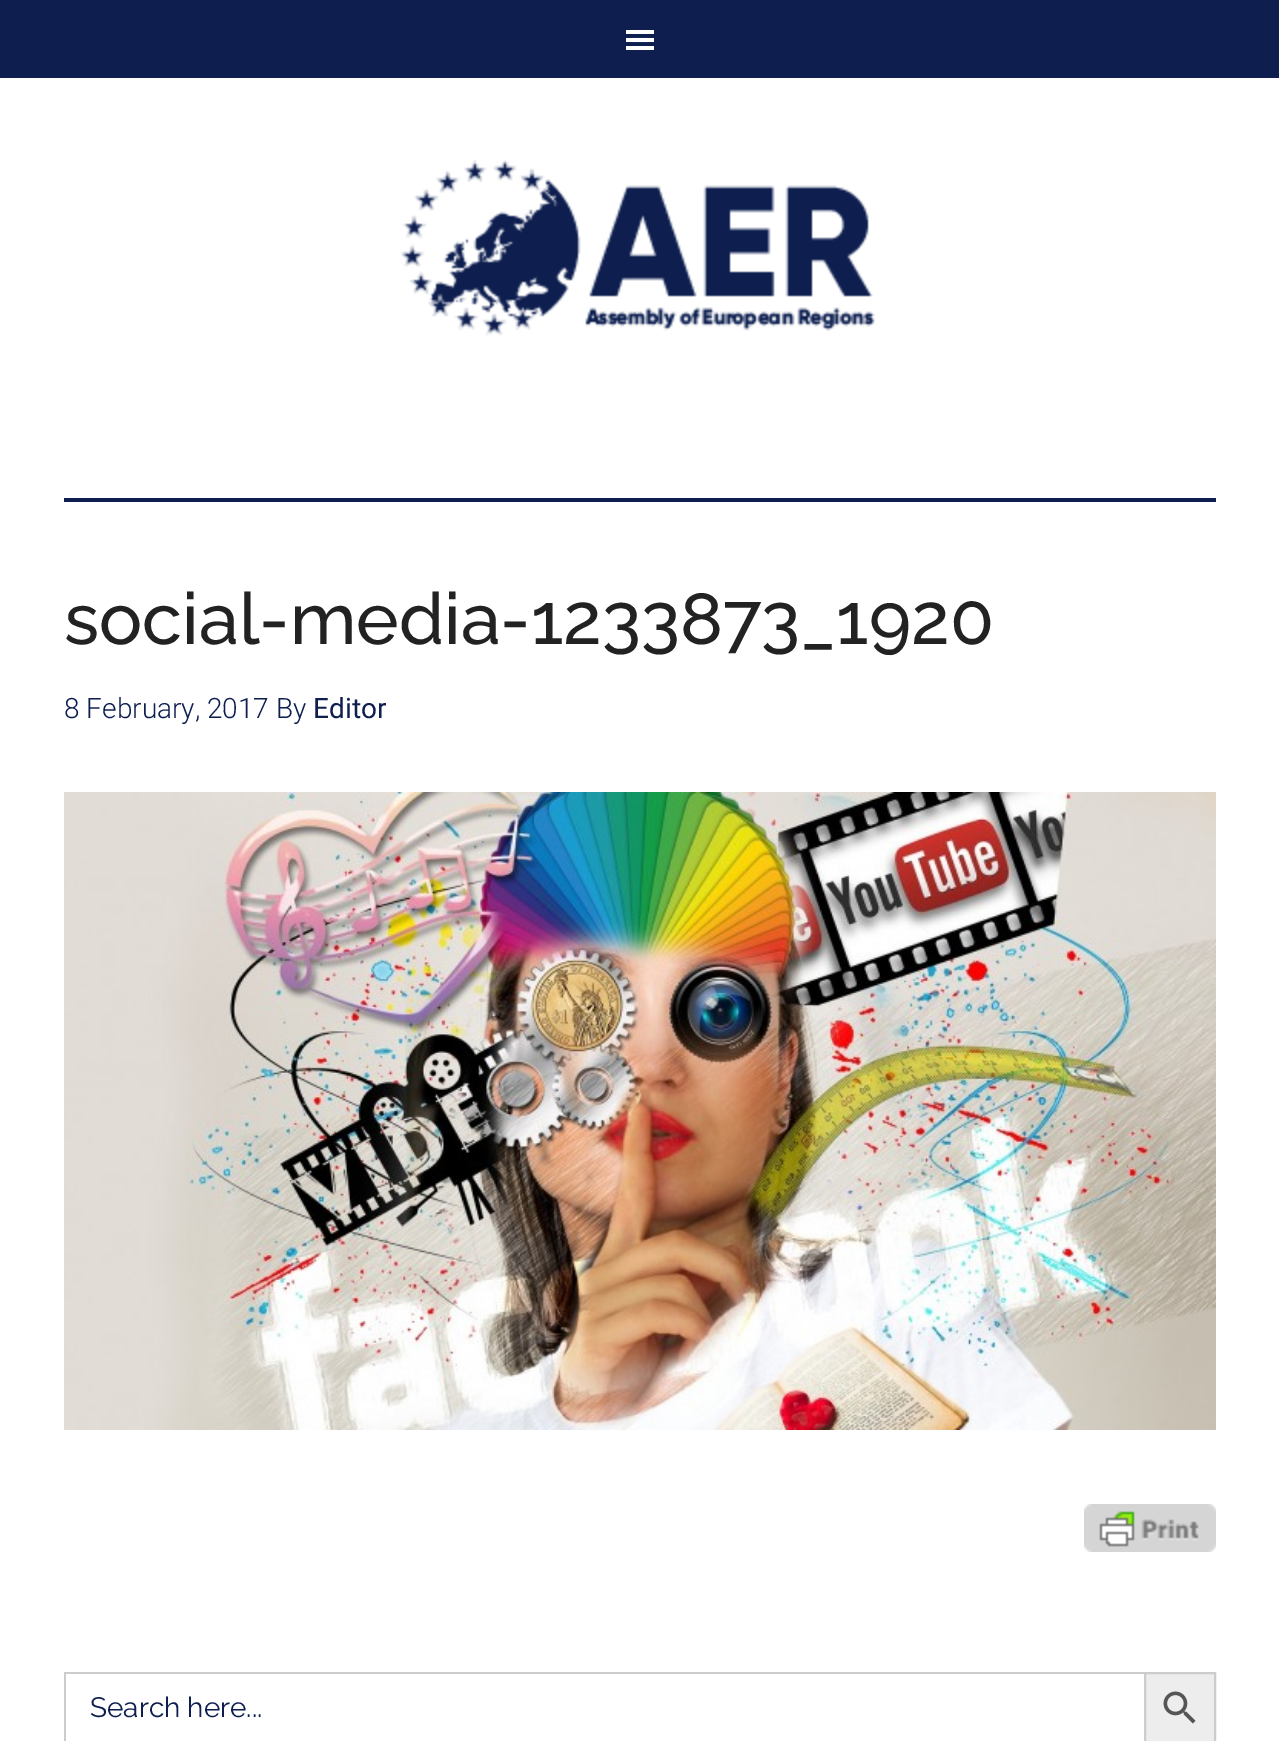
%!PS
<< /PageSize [1279 1741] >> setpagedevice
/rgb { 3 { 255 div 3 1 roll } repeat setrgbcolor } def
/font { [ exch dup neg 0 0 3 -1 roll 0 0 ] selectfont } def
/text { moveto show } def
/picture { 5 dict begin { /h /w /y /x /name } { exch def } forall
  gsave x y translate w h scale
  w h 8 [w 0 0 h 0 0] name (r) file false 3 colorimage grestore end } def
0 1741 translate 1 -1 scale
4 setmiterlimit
255 255 255 rgb
0 0 1279 1741 rectfill
13 30 79 rgb
0 0 1279 78 rectfill
(img_01.rgb) 626 30 28 20 picture
64 498 1152 4 rectfill
(img_02.rgb) 400 159 475 177 picture
(img_03.rgb) 64 792 1152 638 picture
(img_04.rgb) 1084 1504 132 48 picture
204 204 204 rgb
64 1672 1080 2 rectfill
64 1672 2 69 rectfill
237 237 237 rgb
1145 1673 moveto 70 0 rlineto 0 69 rlineto -70 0 rlineto closepath gsave fill grestore
204 204 204 rgb
2 setlinewidth
stroke
(img_05.rgb) 1163 1691 33 33 picture
/Raleway-Medium 72 font
34 34 34 rgb
(social-media-1233873_1920) 64 644 text
/Roboto-Light 28 font
13 30 79 rgb
(8 February, 2017 By) 64 718 text
/Roboto-Regular 28 font
(Editor) 313 718 text
/Raleway-Regular 28 font
(Search here...) 90 1717 text
showpage
